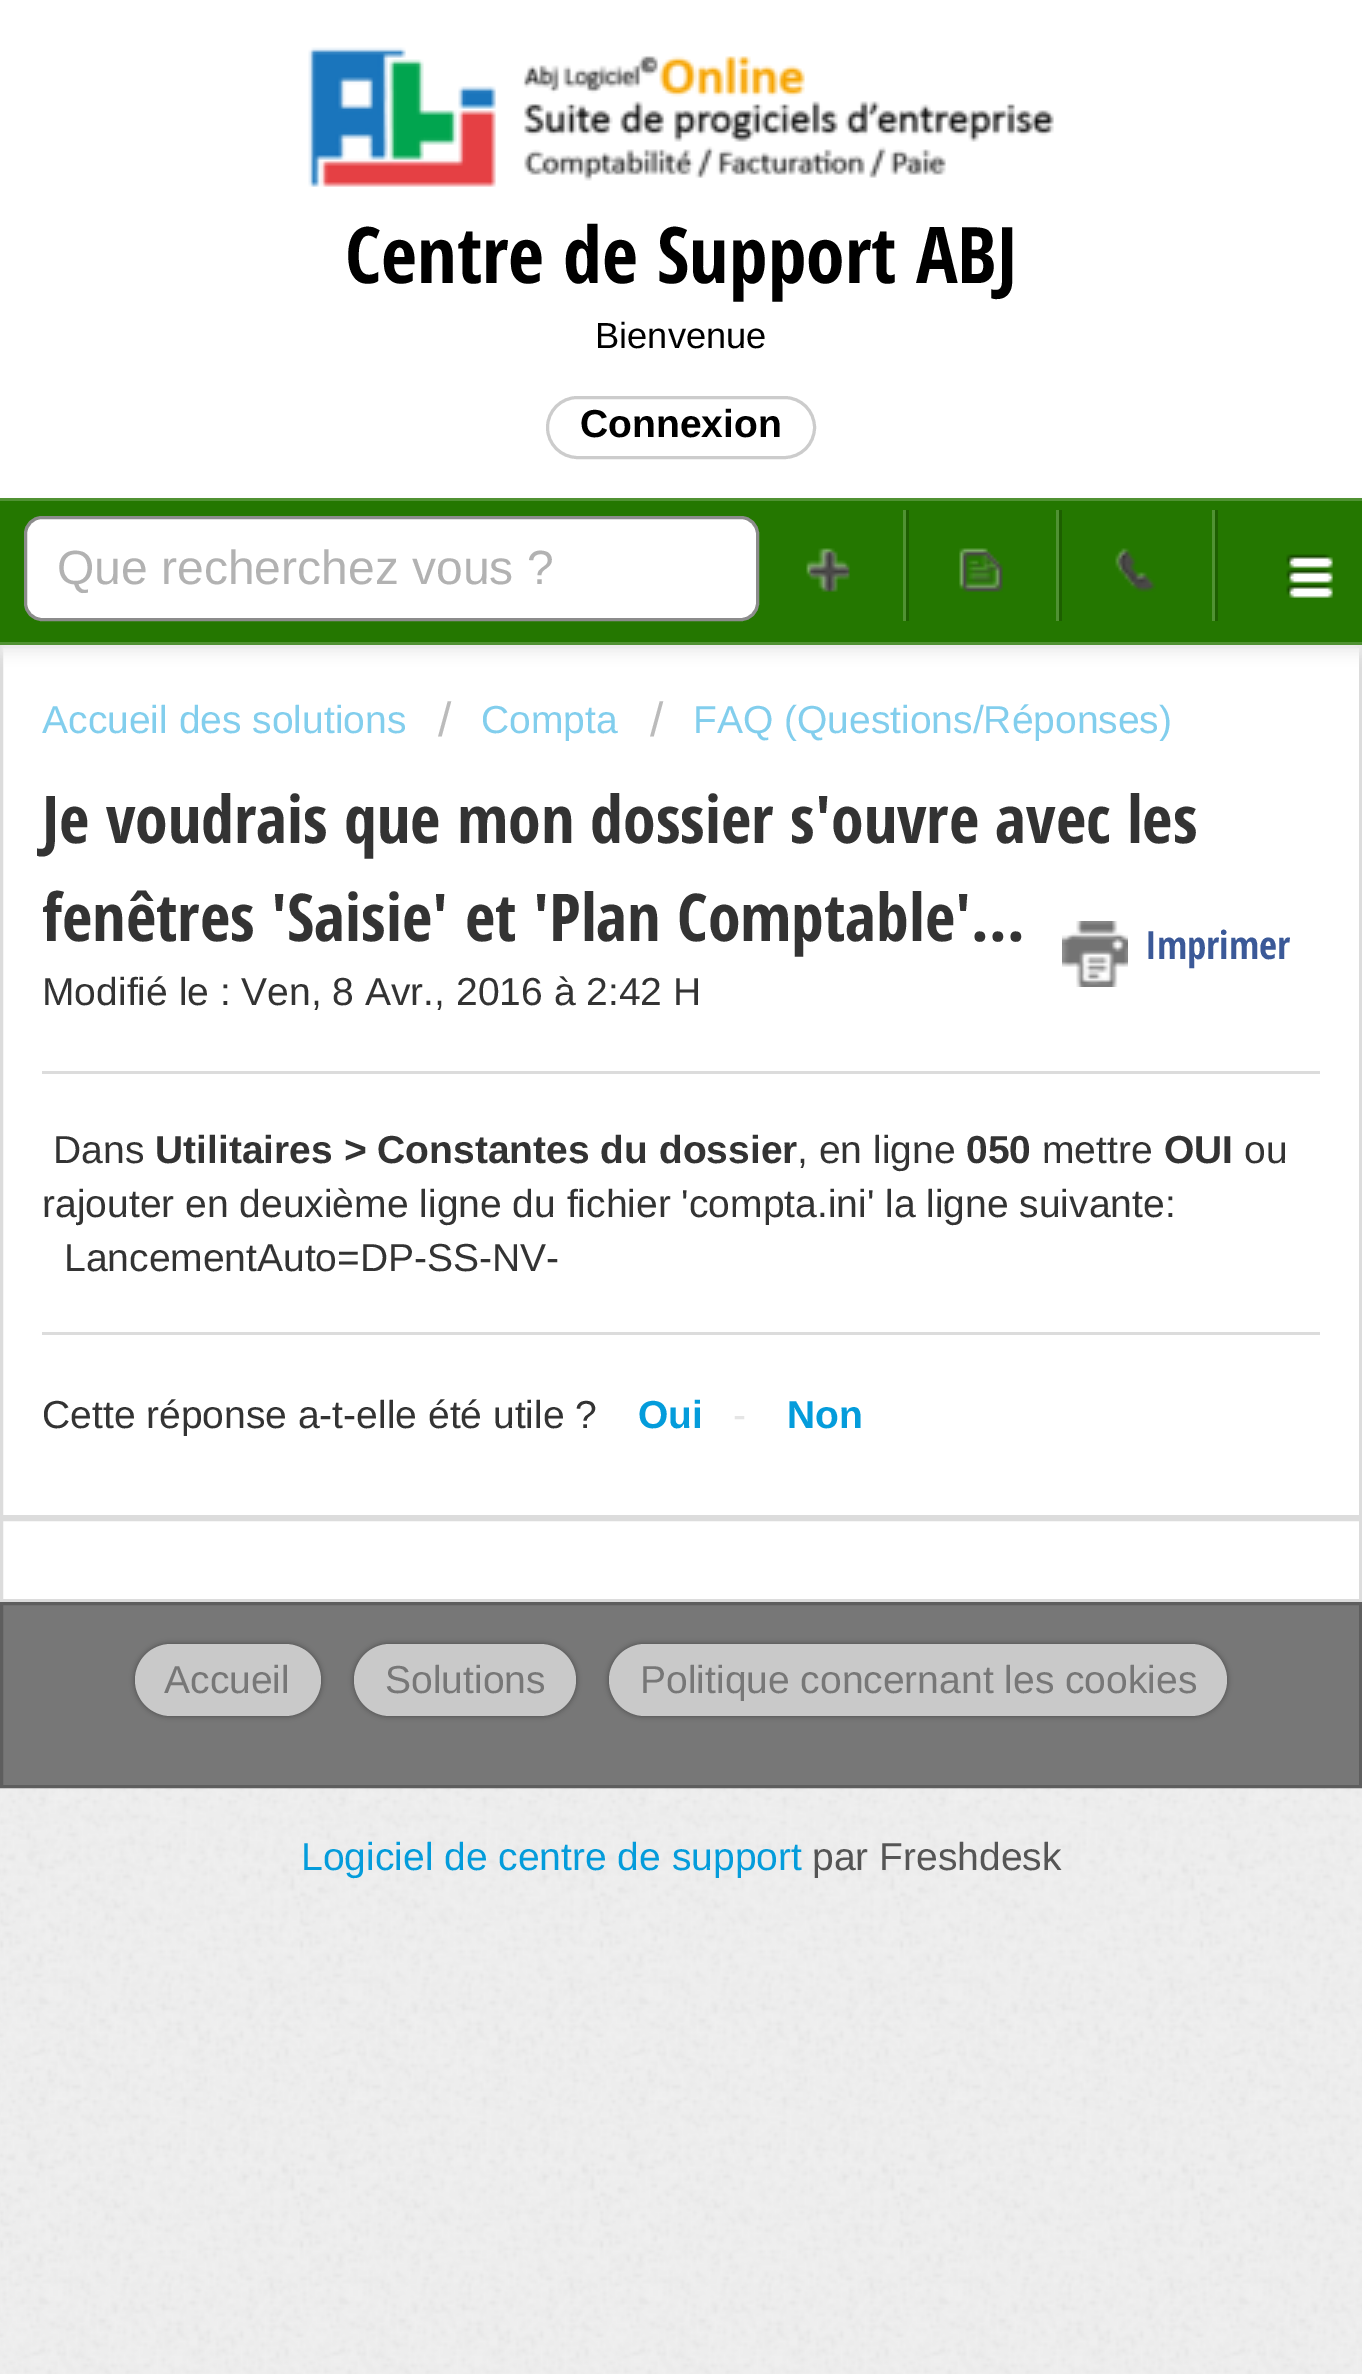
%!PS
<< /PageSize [1362 2374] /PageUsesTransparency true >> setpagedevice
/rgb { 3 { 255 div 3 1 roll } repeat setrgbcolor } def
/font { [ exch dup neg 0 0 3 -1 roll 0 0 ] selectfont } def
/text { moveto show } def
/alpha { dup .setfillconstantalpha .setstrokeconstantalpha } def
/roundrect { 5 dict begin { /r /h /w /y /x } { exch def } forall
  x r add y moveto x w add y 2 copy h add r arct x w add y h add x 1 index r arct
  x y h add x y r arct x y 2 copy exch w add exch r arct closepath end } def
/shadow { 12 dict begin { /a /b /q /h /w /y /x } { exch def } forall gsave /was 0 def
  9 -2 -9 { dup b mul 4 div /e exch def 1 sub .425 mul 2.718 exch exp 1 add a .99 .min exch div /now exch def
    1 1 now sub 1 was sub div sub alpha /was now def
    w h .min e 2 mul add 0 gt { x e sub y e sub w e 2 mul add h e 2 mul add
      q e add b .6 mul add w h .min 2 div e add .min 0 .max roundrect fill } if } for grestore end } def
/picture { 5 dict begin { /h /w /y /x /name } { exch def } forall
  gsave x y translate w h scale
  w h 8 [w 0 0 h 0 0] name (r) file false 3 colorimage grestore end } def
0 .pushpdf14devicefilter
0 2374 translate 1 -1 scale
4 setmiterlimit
239 239 239 rgb
0 0 1362 2374 rectfill
(img_01.rgb) 0 1788 1362 586 picture
255 255 255 rgb
0 0 1362 498 rectfill
(img_02.rgb) 308 47 746 140 picture
204 204 204 rgb
3 setlinewidth
547.5 397.5 267 60 30 roundrect stroke
255 255 255 rgb
1.5 646.5 moveto 1359 0 rlineto 0 870 rlineto -1359 0 rlineto closepath gsave fill grestore
220 220 220 rgb
stroke
238 238 238 rgb
0 507 1362 147 0 6 1 shadow
36 119 0 rgb
0 501 1362 141 rectfill
80 146 51 rgb
0 498 1362 3 rectfill
0 642 1362 3 rectfill
(img_03.rgb) 1286 554 47 44 picture
255 255 255 rgb
25.5 517.5 732 102 16.5 roundrect gsave fill grestore
140 140 140 rgb
stroke
29 95 0 rgb
906 510 3 111 rectfill
80 146 51 rgb
903 510 3 111 rectfill
(img_04.rgb) 806 548 44 44 picture
29 95 0 rgb
1059 510 3 111 rectfill
80 146 51 rgb
1056 510 3 111 rectfill
(img_05.rgb) 959 548 44 44 picture
29 95 0 rgb
1215 510 3 111 rectfill
80 146 51 rgb
1212 510 3 111 rectfill
(img_06.rgb) 1115 548 41 44 picture
(img_07.rgb) 1062 921 66 66 picture
220 220 220 rgb
42 1071 1278 3 rectfill
42 1332 1278 3 rectfill
255 255 255 rgb
1.5 1519.5 moveto 1359 0 rlineto 0 81 rlineto -1359 0 rlineto closepath gsave fill grestore
220 220 220 rgb
stroke
119 119 119 rgb
1.5 1603.5 moveto 1359 0 rlineto 0 183 rlineto -1359 0 rlineto closepath gsave fill grestore
94 94 94 rgb
stroke
73 73 73 rgb
135 1644 186 72 36 3 1 shadow
201 201 201 rgb
135 1644 186 72 36 roundrect fill
73 73 73 rgb
354 1644 222 72 36 3 1 shadow
201 201 201 rgb
354 1644 222 72 36 roundrect fill
73 73 73 rgb
609 1644 618 72 36 3 1 shadow
201 201 201 rgb
609 1644 618 72 36 roundrect fill
/OpenSansCondensed-Bold 78 font
0 0 0 rgb
(Centre de Support ABJ) 345 283 text
/LiberationSans-Regular 36.25 font
(Bienvenue) 595 348 text
/LiberationSans-Bold 39 font
(Connexion) 580 437 text
/LiberationSans-Regular 48 font
178 178 178 rgb
(Que recherchez vous ?) 57 584 text
/LiberationSans-Regular 39 font
130 206 237 rgb
(Accueil des solutions) 42 733 text
/LiberationSans-Regular 48 font
187 187 187 rgb
(/) 438 736 text
/LiberationSans-Regular 39 font
130 206 237 rgb
(Compta) 481 733 text
/LiberationSans-Regular 48 font
187 187 187 rgb
(/) 650 736 text
/LiberationSans-Regular 39 font
130 206 237 rgb
(FAQ \(Questions/Réponses\)) 693 733 text
/OpenSansCondensed-Bold 66 font
51 51 51 rgb
(Je voudrais que mon dossier s'ouvre avec les) 42 843 text
(fenêtres 'Saisie' et 'Plan Comptable'...) 42 941 text
/OpenSansCondensed-Bold 39 font
59 89 152 rgb
(Imprimer) 1145 959 text
/LiberationSans-Regular 39 font
51 51 51 rgb
(Modifié le : Ven, 8 Avr., 2016 à 2:42 H) 42 1005 text
(Dans) 53 1163 text
/LiberationSans-Bold 39 font
(Utilitaires > Constantes du dossier) 155 1163 text
/LiberationSans-Regular 39 font
(, en ligne) 797 1163 text
/LiberationSans-Bold 39 font
(050) 966 1163 text
/LiberationSans-Regular 39 font
(mettre) 1042 1163 text
/LiberationSans-Bold 39 font
(OUI) 1164 1163 text
/LiberationSans-Regular 39 font
(ou) 1244 1163 text
(rajouter en deuxième ligne du fichier 'compta.ini' la ligne suivante:) 42 1217 text
(LancementAuto=DP-SS-NV-) 64 1271 text
(Cette réponse a-t-elle été utile ?) 42 1428 text
/LiberationSans-Bold 39 font
4 156 219 rgb
(Oui) 638 1428 text
/LiberationSans-Regular 39 font
229 229 229 rgb
(-) 733 1428 text
/LiberationSans-Bold 39 font
4 156 219 rgb
(Non) 787 1428 text
/LiberationSans-Regular 39 font
119 119 119 rgb
(Accueil) 164 1693 text
(Solutions) 385 1693 text
(Politique concernant les cookies) 640 1693 text
4 156 219 rgb
(Logiciel de centre de support) 301 1870 text
85 85 85 rgb
(par Freshdesk) 812 1870 text
.poppdf14devicefilter showpage
